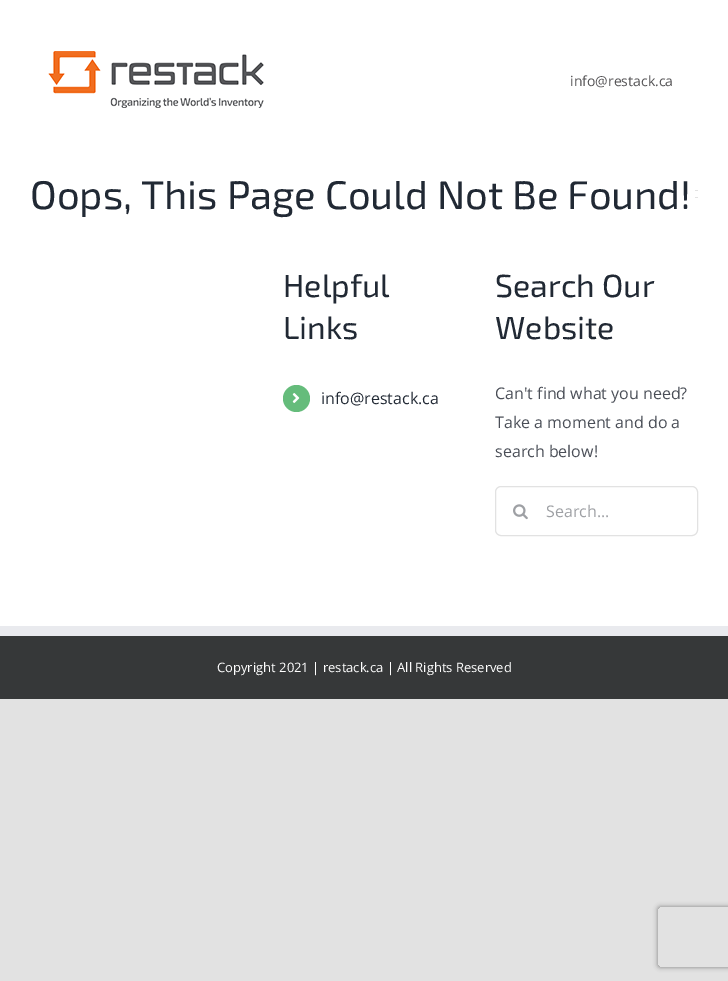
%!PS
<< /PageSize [728 981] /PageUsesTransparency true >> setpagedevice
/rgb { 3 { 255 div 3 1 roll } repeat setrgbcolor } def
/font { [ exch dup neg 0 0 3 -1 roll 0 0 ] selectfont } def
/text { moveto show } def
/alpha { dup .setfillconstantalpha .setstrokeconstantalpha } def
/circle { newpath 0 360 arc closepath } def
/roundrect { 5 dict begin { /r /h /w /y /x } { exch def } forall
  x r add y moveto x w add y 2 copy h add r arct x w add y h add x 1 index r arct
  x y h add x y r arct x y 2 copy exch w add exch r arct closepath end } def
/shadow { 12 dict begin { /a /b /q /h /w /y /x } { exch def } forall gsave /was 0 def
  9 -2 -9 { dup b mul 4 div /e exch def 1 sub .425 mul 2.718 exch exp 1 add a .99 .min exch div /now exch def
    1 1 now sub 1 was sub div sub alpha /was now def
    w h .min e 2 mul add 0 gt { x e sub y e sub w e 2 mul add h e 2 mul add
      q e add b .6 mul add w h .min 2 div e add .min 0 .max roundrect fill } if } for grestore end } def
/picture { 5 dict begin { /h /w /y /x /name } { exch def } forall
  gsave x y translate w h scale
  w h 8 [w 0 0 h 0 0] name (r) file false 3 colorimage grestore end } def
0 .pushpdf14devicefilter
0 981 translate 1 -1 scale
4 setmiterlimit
226 226 226 rgb
0 0 728 981 rectfill
255 255 255 rgb
0 0 728 626 rectfill
(img_01.rgb) 48 51 216 57 picture
226 226 226 rgb
695 190 3 1 rectfill
695 197 3 1 rectfill
101 188 123 rgb
296.5 398.5 13.5 circle fill
(img_02.rgb) 292 393 8 10 picture
226 226 226 rgb
495.5 486.5 202 49 5.5 roundrect stroke
(img_03.rgb) 513 504 15 16 picture
54 56 57 rgb
0 636 728 63 rectfill
233 234 238 rgb
0 626 728 10 rectfill
gsave
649 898 moveto 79 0 rlineto 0 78 rlineto -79 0 rlineto closepath 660 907 moveto 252 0 rlineto 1 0 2 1 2 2 rcurveto 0 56 rlineto 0 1 -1 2 -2 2 rcurveto -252 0 rlineto -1 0 -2 -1 -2 -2 rcurveto 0 -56 rlineto 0 -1 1 -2 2 -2 rcurveto closepath eoclip newpath
128 128 128 rgb
658 907 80 60 2 2.5 1 shadow
grestore
/OpenSans-Regular 14 font
84 83 85 rgb
(info@restack.ca) 570 86 text
/Exo2-Regular 40 font
33 41 52 rgb
(Oops, This Page Could Not Be Found!) 30 209 text
/Exo2-Regular 32 font
(Helpful) 283 297 text
(Links) 283 339 text
/OpenSans-Regular 16 font
(info@restack.ca) 321 404 text
/Exo2-Regular 32 font
(Search Our) 495 297 text
(Website) 495 339 text
/OpenSans-Regular 16 font
74 78 87 rgb
(Can't find what you need?) 495 399 text
(Take a moment and do a) 495 428 text
(search below!) 495 457 text
158 160 164 rgb
(Search...) 546 517 text
/OpenSans-Regular 13 font
255 255 255 rgb
(Copyright 2021 | restack.ca | All Rights Reserved) 217 672 text
.poppdf14devicefilter showpage
